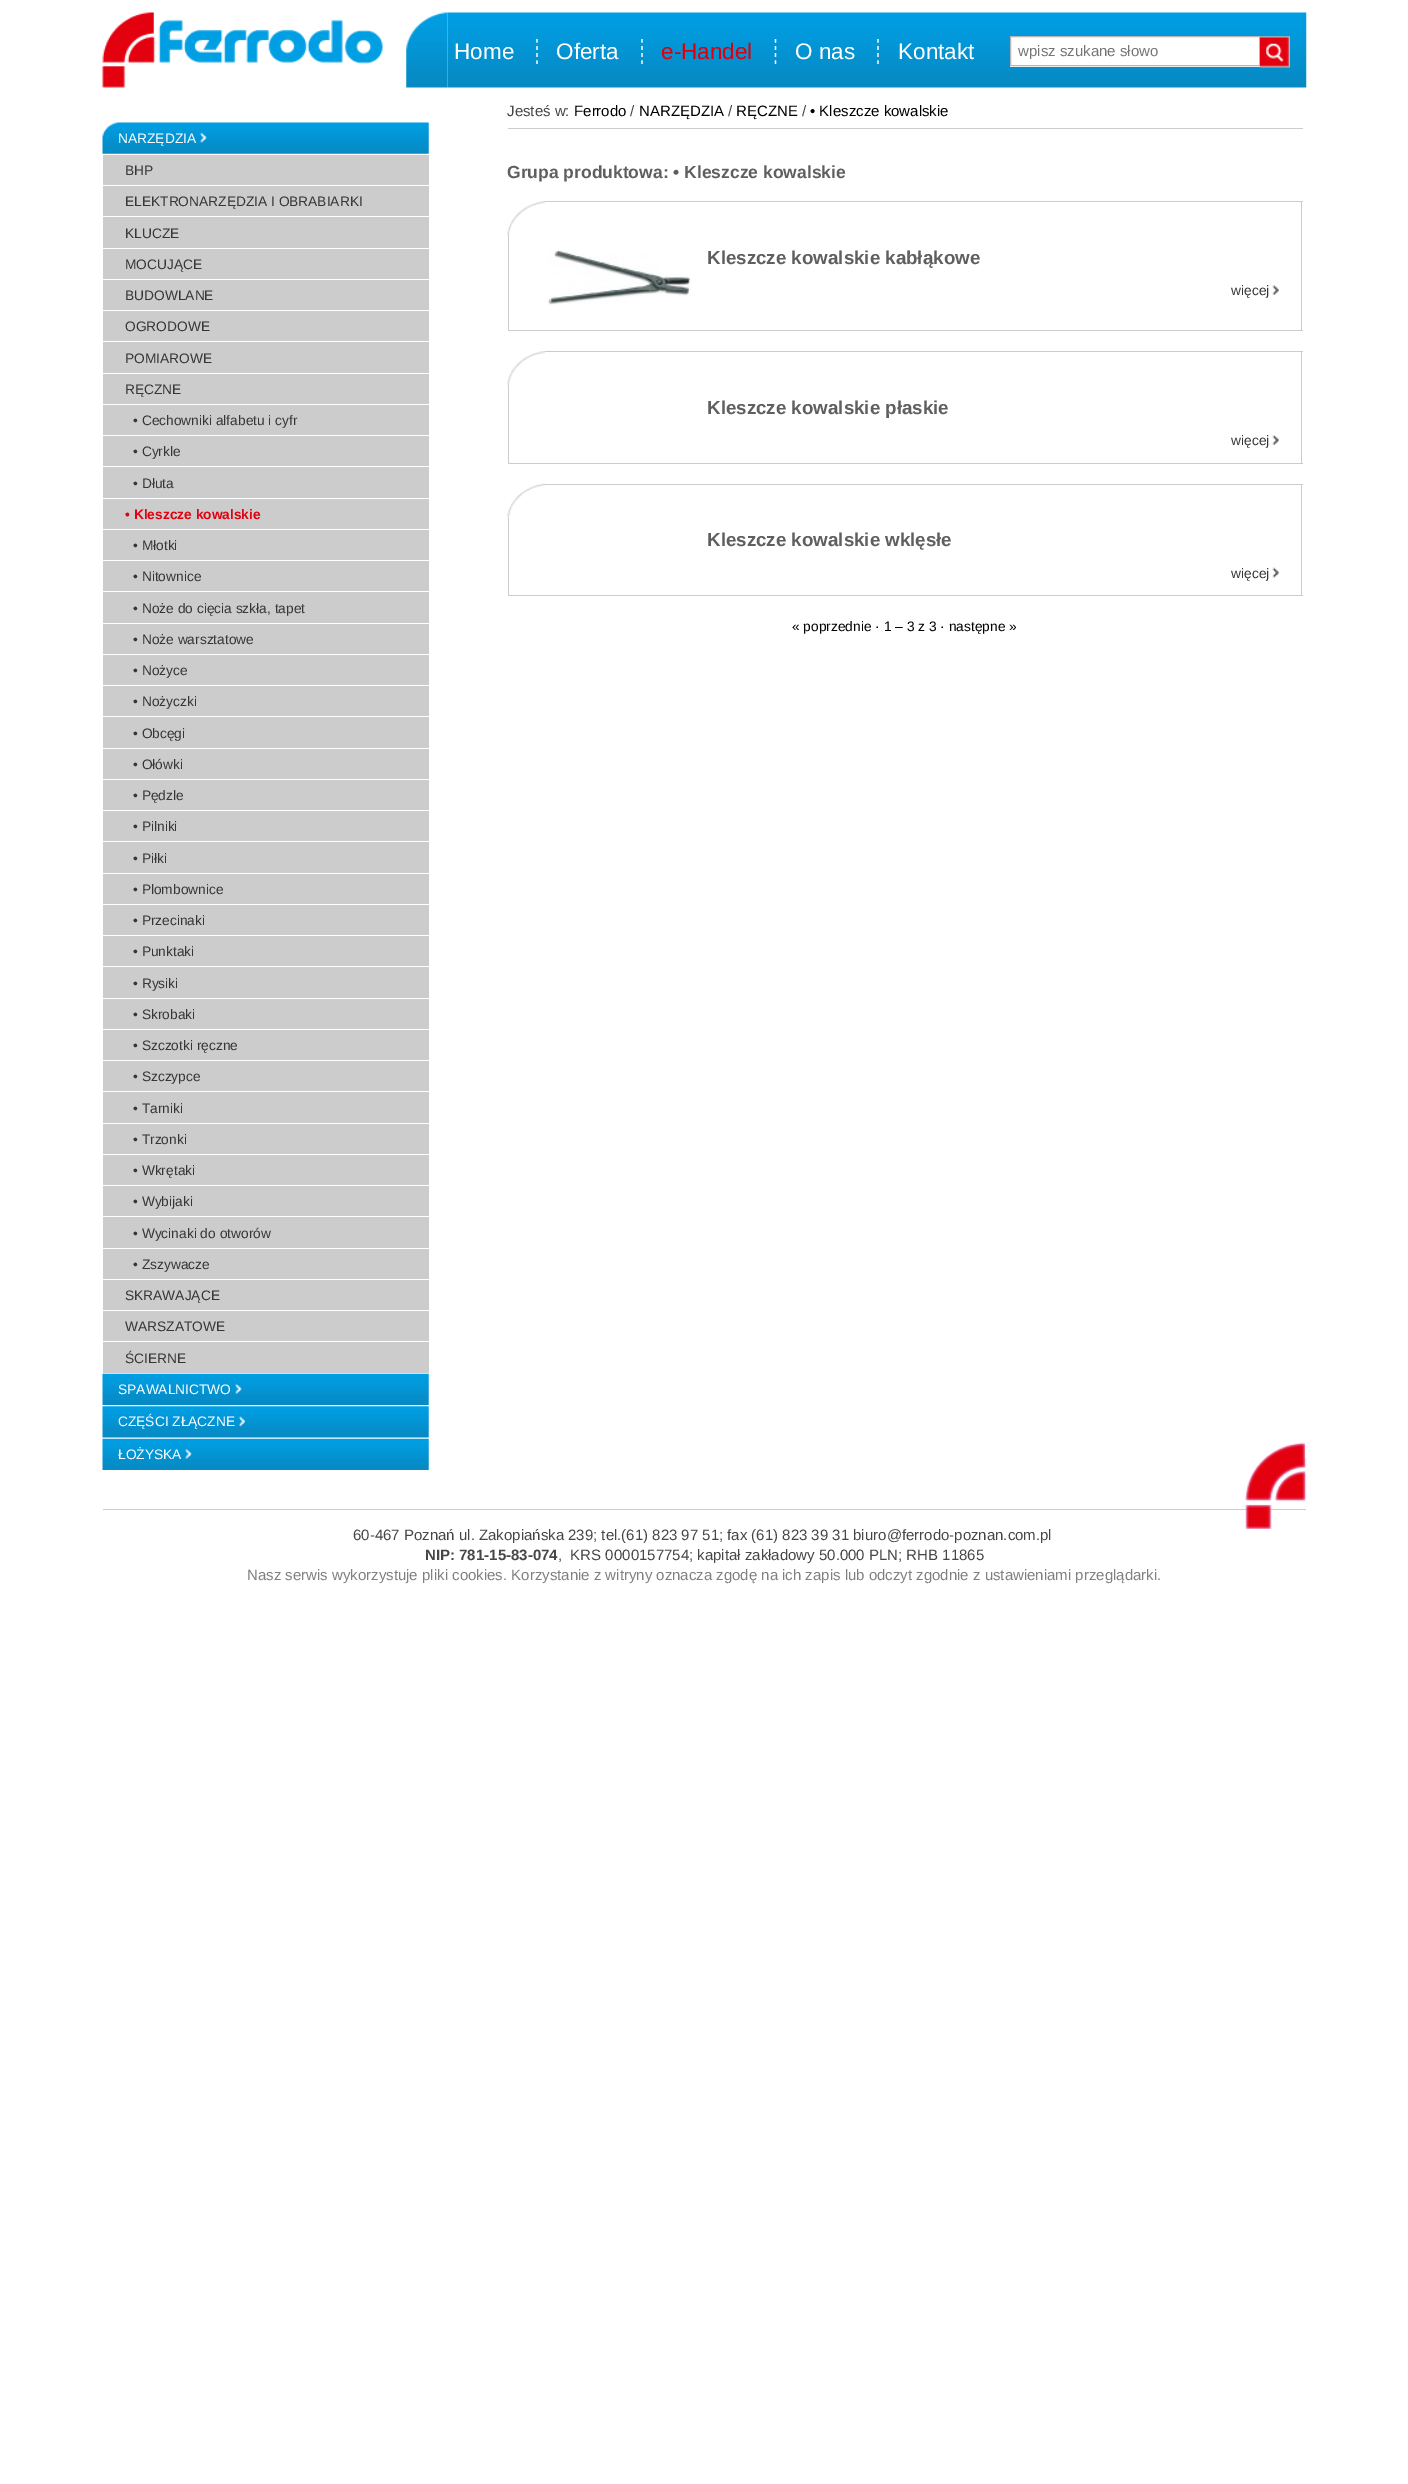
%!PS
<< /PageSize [1408 2484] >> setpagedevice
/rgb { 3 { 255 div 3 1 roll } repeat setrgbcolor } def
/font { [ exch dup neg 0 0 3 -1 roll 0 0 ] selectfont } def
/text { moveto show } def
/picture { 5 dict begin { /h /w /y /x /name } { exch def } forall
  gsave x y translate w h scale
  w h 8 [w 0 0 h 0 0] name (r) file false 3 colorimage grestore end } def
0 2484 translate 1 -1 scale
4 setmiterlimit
255 255 255 rgb
0 0 1408 2484 rectfill
(img_01.rgb) 102 12 281 76 picture
(img_03.rgb) 447 12 860 76 picture
(img_02.rgb) 406 12 42 76 picture
1.2 setlinewidth
[3.75 3.34] 0 setdash
537 39 moveto 0 25 rlineto stroke
642 39 moveto 0 25 rlineto stroke
775.5 39 moveto 0 25 rlineto stroke
878 39 moveto 0 25 rlineto stroke
1010 37 250 30 rectfill
183 183 183 rgb
1 setlinewidth
[] 0 setdash
1010.5 36.5 249 29 rectstroke
(img_04.rgb) 1260 36 30 32 picture
(img_05.rgb) 102 122 327 32 picture
(img_06.rgb) 200 132 7 11 picture
204 204 204 rgb
103 155 326 30 rectfill
103 186 326 62 rectfill
255 255 255 rgb
103 216 326 1 rectfill
204 204 204 rgb
103 249 326 30 rectfill
103 280 326 30 rectfill
103 311 326 62 rectfill
255 255 255 rgb
103 341 326 1 rectfill
204 204 204 rgb
103 374 326 30 rectfill
103 405 326 30 rectfill
103 436 326 62 rectfill
255 255 255 rgb
103 466 326 1 rectfill
204 204 204 rgb
103 499 326 30 rectfill
103 530 326 30 rectfill
103 561 326 62 rectfill
255 255 255 rgb
103 591 326 1 rectfill
204 204 204 rgb
103 624 326 30 rectfill
103 655 326 30 rectfill
103 686 326 62 rectfill
255 255 255 rgb
103 716 326 1 rectfill
204 204 204 rgb
103 749 326 30 rectfill
103 780 326 30 rectfill
103 811 326 62 rectfill
255 255 255 rgb
103 841 326 1 rectfill
204 204 204 rgb
103 874 326 30 rectfill
103 905 326 30 rectfill
103 936 326 62 rectfill
255 255 255 rgb
103 966 326 1 rectfill
204 204 204 rgb
103 999 326 30 rectfill
103 1030 326 30 rectfill
103 1061 326 62 rectfill
255 255 255 rgb
103 1091 326 1 rectfill
204 204 204 rgb
103 1124 326 30 rectfill
103 1155 326 30 rectfill
103 1186 326 62 rectfill
255 255 255 rgb
103 1216 326 1 rectfill
204 204 204 rgb
103 1249 326 30 rectfill
103 1280 326 30 rectfill
103 1311 326 62 rectfill
255 255 255 rgb
103 1341 326 1 rectfill
(img_07.rgb) 102 1373 327 32 picture
(img_08.rgb) 235 1383 7 11 picture
(img_09.rgb) 102 1406 327 32 picture
(img_10.rgb) 238 1416 7 11 picture
(img_11.rgb) 102 1438 327 32 picture
(img_08.rgb) 185 1448 7 11 picture
204 204 204 rgb
508 128 795 1 rectfill
(img_12.rgb) 507 201 38 34 picture
545 201 758 1 rectfill
1301 201 1 130 rectfill
508 330 795 1 rectfill
508 235 1 96 rectfill
(img_13.rgb) 548 250 143 55 picture
(img_14.rgb) 1272 285 7 10 picture
(img_12.rgb) 507 351 38 34 picture
545 351 758 1 rectfill
1301 351 1 113 rectfill
508 463 795 1 rectfill
508 385 1 79 rectfill
(img_14.rgb) 1272 435 7 10 picture
(img_15.rgb) 507 483 38 35 picture
545 484 758 1 rectfill
1301 484 1 112 rectfill
508 595 795 1 rectfill
508 518 1 78 rectfill
(img_16.rgb) 1272 567 7 11 picture
103 1509 1203 1 rectfill
(img_17.rgb) 1245 1442 62 87 picture
/LiberationSans-Regular 22.5 font
255 255 255 rgb
(Home) 454 59 text
(Oferta) 556 59 text
220 0 15 rgb
(e-Handel) 661 59 text
255 255 255 rgb
(O nas) 795 59 text
(Kontakt) 898 59 text
/LiberationSans-Regular 15 font
117 117 117 rgb
(wpisz szukane słowo) 1018 56 text
/LiberationSans-Regular 13.75 font
255 255 255 rgb
(NARZĘDZIA) 118 143 text
54 54 54 rgb
(BHP) 125 175 text
(ELEKTRONARZĘDZIA I OBRABIARKI) 125 206 text
(KLUCZE) 125 238 text
(MOCUJĄCE) 125 269 text
(BUDOWLANE) 125 300 text
(OGRODOWE) 125 331 text
(POMIAROWE) 125 363 text
(RĘCZNE) 125 394 text
(• Cechowniki alfabetu i cyfr) 133 425 text
(• Cyrkle) 133 456 text
(• Dłuta) 133 488 text
/LiberationSans-Bold 13.75 font
227 0 15 rgb
(• Kleszcze kowalskie) 125 519 text
/LiberationSans-Regular 13.75 font
54 54 54 rgb
(• Młotki) 133 550 text
(• Nitownice) 133 581 text
(• Noże do cięcia szkła, tapet) 133 613 text
(• Noże warsztatowe) 133 644 text
(• Nożyce) 133 675 text
(• Nożyczki) 133 706 text
(• Obcęgi) 133 738 text
(• Ołówki) 133 769 text
(• Pędzle) 133 800 text
(• Pilniki) 133 831 text
(• Piłki) 133 863 text
(• Plombownice) 133 894 text
(• Przecinaki) 133 925 text
(• Punktaki) 133 956 text
(• Rysiki) 133 988 text
(• Skrobaki) 133 1019 text
(• Szczotki ręczne) 133 1050 text
(• Szczypce) 133 1081 text
(• Tarniki) 133 1113 text
(• Trzonki) 133 1144 text
(• Wkrętaki) 133 1175 text
(• Wybijaki) 133 1206 text
(• Wycinaki do otworów) 133 1238 text
(• Zszywacze) 133 1269 text
(SKRAWAJĄCE) 125 1300 text
(WARSZATOWE) 125 1331 text
(ŚCIERNE) 125 1363 text
255 255 255 rgb
(SPAWALNICTWO) 118 1394 text
(CZĘŚCI ZŁĄCZNE) 118 1426 text
(ŁOŻYSKA) 118 1459 text
/LiberationSans-Regular 15 font
70 70 70 rgb
(Jesteś w:) 507 116 text
0 0 0 rgb
(Ferrodo) 574 116 text
70 70 70 rgb
(/) 630 116 text
0 0 0 rgb
(NARZĘDZIA) 639 116 text
70 70 70 rgb
(/) 728 116 text
0 0 0 rgb
(RĘCZNE) 736 116 text
70 70 70 rgb
(/) 802 116 text
0 0 0 rgb
(• Kleszcze kowalskie) 810 116 text
/LiberationSans-Bold 17.5 font
95 95 95 rgb
(Grupa produktowa: • Kleszcze kowalskie) 507 178 text
/LiberationSans-Bold 18.75 font
(Kleszcze kowalskie kabłąkowe) 707 264 text
/LiberationSans-Regular 13.75 font
54 54 54 rgb
(więcej) 1231 295 text
/LiberationSans-Bold 18.75 font
95 95 95 rgb
(Kleszcze kowalskie płaskie) 707 414 text
/LiberationSans-Regular 13.75 font
54 54 54 rgb
(więcej) 1231 445 text
/LiberationSans-Bold 18.75 font
95 95 95 rgb
(Kleszcze kowalskie wklęsłe) 707 546 text
/LiberationSans-Regular 13.75 font
54 54 54 rgb
(więcej) 1231 578 text
0 0 0 rgb
(« poprzednie · 1 – 3 z 3 · następne ») 792 631 text
/LiberationSans-Regular 15 font
70 70 70 rgb
(60-467 Poznań ul. Zakopiańska 239; tel.\(61\) 823 97 51; fax \(61\) 823 39 31 biuro@ferrodo-poznan.com.pl) 353 1540 text
/LiberationSans-Bold 15 font
(NIP: 781-15-83-074) 425 1560 text
/LiberationSans-Regular 15 font
(,  KRS 0000157754; kapitał zakładowy 50.000 PLN; RHB 11865) 558 1560 text
128 128 128 rgb
(Nasz serwis wykorzystuje pliki cookies. Korzystanie z witryny oznacza zgodę na ich zapis lub odczyt zgodnie z ustawieniami przeglądarki.) 247 1580 text
showpage
